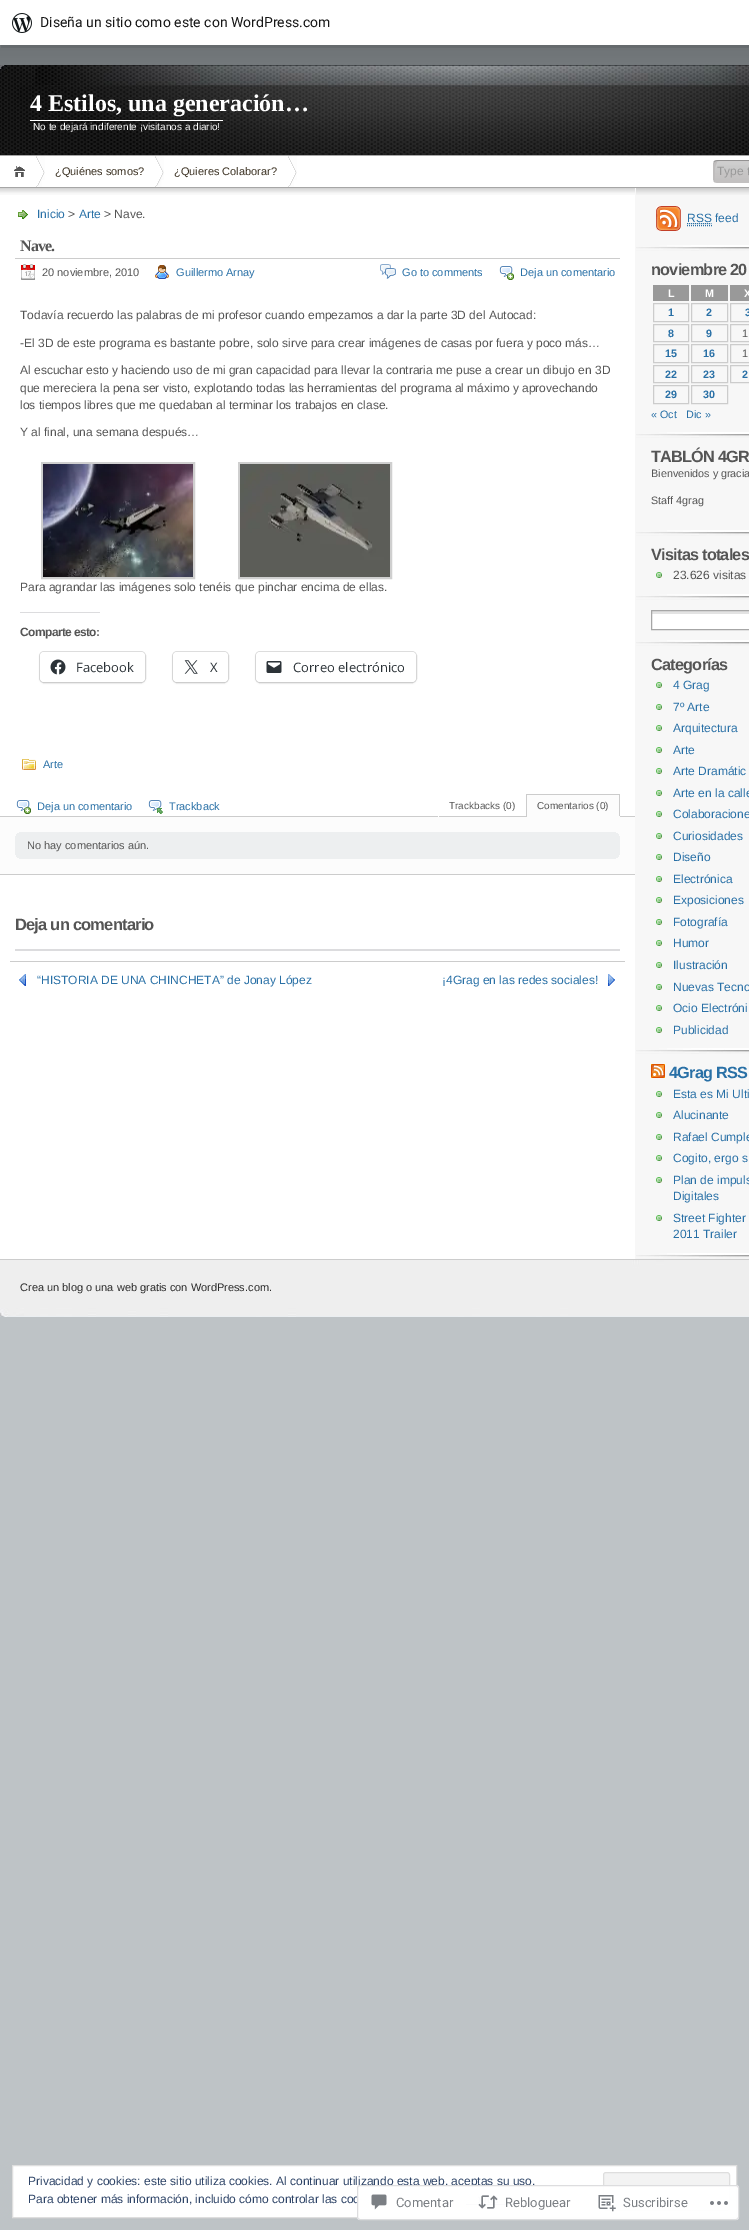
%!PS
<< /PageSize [749 2230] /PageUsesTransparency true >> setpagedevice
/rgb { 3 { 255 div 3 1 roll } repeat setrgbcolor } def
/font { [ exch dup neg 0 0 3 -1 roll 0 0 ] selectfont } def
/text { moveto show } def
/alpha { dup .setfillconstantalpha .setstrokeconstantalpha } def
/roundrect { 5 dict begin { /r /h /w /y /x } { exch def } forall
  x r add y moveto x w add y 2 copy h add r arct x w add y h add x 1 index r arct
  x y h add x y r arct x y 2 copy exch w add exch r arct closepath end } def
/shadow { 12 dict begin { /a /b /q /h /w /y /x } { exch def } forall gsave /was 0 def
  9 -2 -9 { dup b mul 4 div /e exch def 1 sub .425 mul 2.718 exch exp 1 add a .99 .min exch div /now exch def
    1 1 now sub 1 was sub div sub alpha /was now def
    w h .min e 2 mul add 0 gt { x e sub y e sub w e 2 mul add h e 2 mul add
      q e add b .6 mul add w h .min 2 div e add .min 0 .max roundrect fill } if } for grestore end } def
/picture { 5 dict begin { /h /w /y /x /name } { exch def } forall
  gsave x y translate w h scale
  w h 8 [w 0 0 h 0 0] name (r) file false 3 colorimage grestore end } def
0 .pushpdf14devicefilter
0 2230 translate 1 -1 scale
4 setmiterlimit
190 195 198 rgb
0 0 749 2230 rectfill
(img_01.rgb) 0 45 749 20 picture
0.08 alpha
0 0 0 rgb
1 45 moveto 0 3 rlineto 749 0 rlineto 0 -45 rlineto -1 0 rlineto 0 42 rlineto closepath fill
1 alpha
255 255 255 rgb
0 0 749 45 rectfill
(img_02.rgb) 12 13 20 20 picture
(img_03.rgb) 0 65 749 90 picture
166 166 166 rgb
0 155 749 1 rectfill
255 255 255 rgb
30 120 193 1 rectfill
0 156 749 31 rectfill
166 166 166 rgb
0 187 749 1 rectfill
(img_04.rgb) 14 166 11 11 picture
(img_05.rgb) 36 156 9 31 picture
(img_06.rgb) 155 156 9 31 picture
(img_05.rgb) 288 156 9 31 picture
(img_07.rgb) 713 160 36 23 picture
255 255 255 rgb
0 195 635 1064 rectfill
247 247 247 rgb
635 188 114 1071 rectfill
(img_08.rgb) 0 188 635 7 picture
(img_09.rgb) 18 210 10 10 picture
204 204 204 rgb
15 258 605 1 rectfill
(img_10.rgb) 21 264 14 16 picture
(img_11.rgb) 155 265 14 14 picture
(img_12.rgb) 380 264 16 15 picture
(img_13.rgb) 499 266 15 14 picture
207 207 207 rgb
2 setlinewidth
42 463 152 115 rectstroke
(img_14.rgb) 43 464 150 113 picture
239 463 152 115 rectstroke
(img_15.rgb) 240 464 150 113 picture
220 220 222 rgb
20 612 80 1 rectfill
224 224 224 rgb
1 setlinewidth
39.5 651.5 106 31 4.5 roundrect stroke
0 0 0 rgb
40 653 105 30 4 1 0.12 shadow
255 255 255 rgb
40 652 105 30 4 roundrect fill
(img_16.rgb) 50 659 16 16 picture
224 224 224 rgb
172.5 651.5 56 31 4.5 roundrect stroke
0 0 0 rgb
173 653 55 30 4 1 0.12 shadow
255 255 255 rgb
173 652 55 30 4 roundrect fill
(img_17.rgb) 184 660 14 14 picture
224 224 224 rgb
255.5 651.5 161 31 4.5 roundrect stroke
0 0 0 rgb
256 653 160 30 4 1 0.12 shadow
255 255 255 rgb
256 652 160 30 4 roundrect fill
(img_18.rgb) 266 661 16 12 picture
(img_19.rgb) 22 759 14 11 picture
(img_13.rgb) 16 800 15 14 picture
(img_20.rgb) 148 800 15 14 picture
204 204 204 rgb
0 816 635 1 rectfill
255 255 255 rgb
525 816 1 1 rectfill
204 204 204 rgb
525 816 1 1 rectfill
255 255 255 rgb
438 816 1 1 rectfill
252 252 252 rgb
527 795 92 21 rectfill
204 204 204 rgb
526 794 94 1 rectfill
619 794 1 23 rectfill
252 252 252 rgb
526 816 94 1 rectfill
204 204 204 rgb
526 794 1 23 rectfill
252 252 252 rgb
0 817 635 57 rectfill
204 204 204 rgb
0 874 635 1 rectfill
237 239 240 rgb
15 832 605 27 rectfill
(img_21.rgb) 15 832 605 27 picture
220 220 222 rgb
15 949 605 2 rectfill
204 204 204 rgb
10 961 615 1 rectfill
(img_22.rgb) 19 974 7 12 picture
(img_23.rgb) 608 974 7 12 picture
(img_24.rgb) 636 188 113 7 picture
(img_25.rgb) 636 245 113 6 picture
(img_26.rgb) 656 206 25 25 picture
41 112 166 rgb
[1 1] 0 setdash
687 225.5 moveto 25 0 rlineto 687 223.5 moveto 24.5 0 rlineto stroke
(img_25.rgb) 636 432 113 6 picture
153 153 153 rgb
653 285 36 16 rectfill
691 285 37 16 rectfill
730 285 19 16 rectfill
204 204 204 rgb
[] 0 setdash
653.5 303.5 35 18 rectstroke
691.5 303.5 36 18 rectstroke
730.5 303.5 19 18 rectstroke
653.5 324.5 35 17 rectstroke
691.5 324.5 36 17 rectstroke
730.5 324.5 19 17 rectstroke
653.5 344.5 35 18 rectstroke
691.5 344.5 36 18 rectstroke
730.5 344.5 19 18 rectstroke
653.5 365.5 35 17 rectstroke
691.5 365.5 36 17 rectstroke
730.5 365.5 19 17 rectstroke
653.5 385.5 35 18 rectstroke
691.5 385.5 36 18 rectstroke
(img_25.rgb) 636 530 113 6 picture
(img_25.rgb) 636 594 113 6 picture
(img_27.rgb) 656 572 6 6 picture
(img_25.rgb) 636 640 113 6 picture
255 255 255 rgb
652 614 97 15 rectfill
227 227 227 rgb
651 611 98 3 rectfill
166 166 166 rgb
651.5 610.5 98 19 rectstroke
(img_25.rgb) 636 1048 113 6 picture
(img_27.rgb) 656 682 6 6 picture
(img_27.rgb) 656 704 6 6 picture
(img_27.rgb) 656 725 6 6 picture
(img_27.rgb) 656 747 6 6 picture
(img_27.rgb) 656 768 6 6 picture
(img_27.rgb) 656 790 6 6 picture
(img_27.rgb) 656 811 6 6 picture
(img_27.rgb) 656 833 6 6 picture
(img_27.rgb) 656 854 6 6 picture
(img_27.rgb) 656 876 6 6 picture
(img_27.rgb) 656 897 6 6 picture
(img_27.rgb) 656 919 6 6 picture
(img_27.rgb) 656 940 6 6 picture
(img_27.rgb) 656 962 6 6 picture
(img_27.rgb) 656 984 6 6 picture
(img_27.rgb) 656 1005 6 6 picture
(img_27.rgb) 656 1027 6 6 picture
(img_25.rgb) 636 1253 113 6 picture
255 165 0 rgb
651 1064 14 14 rectfill
(img_28.rgb) 651 1064 14 14 picture
(img_27.rgb) 656 1091 6 6 picture
(img_27.rgb) 656 1112 6 6 picture
(img_27.rgb) 656 1134 6 6 picture
(img_27.rgb) 656 1155 6 6 picture
(img_27.rgb) 656 1177 6 6 picture
(img_27.rgb) 656 1215 6 6 picture
(img_29.rgb) 0 1260 749 57 picture
204 204 204 rgb
0 1259 749 1 rectfill
255 255 255 rgb
12.5 2165.5 moveto 724 0 rlineto 0 52 rlineto -724 0 rlineto closepath gsave fill grestore
222 222 222 rgb
stroke
243 243 243 rgb
603.5 2172.5 126 38 2.5 roundrect gsave fill grestore
222 222 222 rgb
stroke
46 68 103 rgb
466 2204 100 1 rectfill
/Roboto-Regular 14 font
23 23 23 rgb
(Diseña un sitio como este con WordPress.com) 40 27 text
/LiberationSerif-Bold 24 font
255 255 255 rgb
(4 Estilos, una generación…) 30 111 text
/LiberationSans-Regular 10 font
(No te dejará indiferente ¡visitanos a diario!) 33 130 text
/LiberationSans-Regular 11 font
56 46 31 rgb
(¿Quiénes somos?) 55 175 text
(¿Quieres Colaborar?) 174 175 text
/LiberationSans-Regular 12 font
153 153 153 rgb
(Type t) 717 175 text
41 112 166 rgb
(Inicio) 37 218 text
85 85 85 rgb
(>) 68 218 text
41 112 166 rgb
(Arte) 79 218 text
85 85 85 rgb
(> Nave.) 104 218 text
/LiberationSerif-Bold 16 font
20 251 moveto -1 0 (Nave.) ashow
/LiberationSans-Regular 11 font
(20 noviembre, 2010) 42 276 text
41 112 166 rgb
(Guillermo Arnay) 176 276 text
(Go to comments) 402 276 text
(Deja un comentario) 520 276 text
/LiberationSans-Regular 12 font
85 85 85 rgb
(Todavía recuerdo las palabras de mi profesor cuando empezamos a dar la parte 3D del Autocad:) 20 319 text
(-El 3D de este programa es bastante pobre, solo sirve para crear imágenes de casas por fuera y poco más…) 20 347 text
(Al escuchar esto y haciendo uso de mi gran capacidad para llevar la contraria me puse a crear un dibujo en 3D) 20 374 text
(que mereciera la pena ser visto, explotando todas las herramientas del programa al máximo y aprovechando) 20 392 text
(los tiempos libres que me quedaban al terminar los trabajos en clase.) 20 409 text
(Y al final, una semana después…) 20 436 text
(Para agrandar las imágenes solo tenéis que pinchar encima de ellas.) 20 591 text
/LiberationSans-Bold 12 font
20 636 moveto -0.6 0 (Comparte esto:) ashow
/OpenSans-Regular 13 font
44 51 56 rgb
(Facebook) 76 672 text
(X) 210 672 text
(Correo electrónico) 293 672 text
/LiberationSans-Regular 11 font
41 112 166 rgb
(Arte) 43 768 text
(Deja un comentario) 37 810 text
(Trackback) 169 810 text
/LiberationSans-Regular 10 font
85 85 85 rgb
(Trackbacks \(0\)) 449 809 text
(Comentarios \(0\)) 537 809 text
/LiberationSans-Regular 11 font
(No hay comentarios aún.) 27 849 text
/LiberationSans-Bold 16.5 font
15 930 moveto -0.8 0 (Deja un comentario) ashow
/LiberationSans-Regular 12 font
41 112 166 rgb
(“HISTORIA DE UNA CHINCHETA” de Jonay López) 37 984 text
(¡4Grag en las redes sociales!) 442 984 text
(RSS feed) 687 222 text
/LiberationSans-Bold 16.25 font
85 85 85 rgb
651 275 moveto -0.75 0 (noviembre 20) ashow
/LiberationSans-Bold 10.75 font
255 255 255 rgb
(L) 668 297 text
(M) 705 297 text
(X) 744 297 text
41 112 166 rgb
(1) 668 316 text
(2) 706 316 text
(3) 745 316 text
(8) 668 337 text
(9) 706 337 text
/LiberationSans-Regular 10.75 font
85 85 85 rgb
(1) 742 337 text
/LiberationSans-Bold 10.75 font
41 112 166 rgb
(15) 665 357 text
(16) 703 357 text
/LiberationSans-Regular 10.75 font
85 85 85 rgb
(1) 742 357 text
/LiberationSans-Bold 10.75 font
41 112 166 rgb
(22) 665 378 text
(23) 703 378 text
(2) 742 378 text
(29) 665 398 text
(30) 703 398 text
/LiberationSans-Regular 10.75 font
(« Oct) 651 418 text
(Dic ») 686 418 text
/LiberationSans-Bold 16.25 font
85 85 85 rgb
651 462 moveto -0.75 0 (TABLÓN 4GR) ashow
/LiberationSans-Regular 10.75 font
(Bienvenidos y gracia) 651 477 text
(Staff 4grag) 651 504 text
/LiberationSans-Bold 16.25 font
651 560 moveto -0.75 0 (Visitas totales) ashow
/LiberationSans-Regular 12 font
(23.626 visitas) 673 579 text
/LiberationSans-Bold 16.25 font
651 670 moveto -0.75 0 (Categorías) ashow
/LiberationSans-Regular 12 font
41 112 166 rgb
(4 Grag) 673 689 text
(7º Arte) 673 711 text
(Arquitectura) 673 732 text
(Arte) 673 754 text
(Arte Dramátic) 673 775 text
(Arte en la calle) 673 797 text
(Colaboracione) 673 818 text
(Curiosidades) 673 840 text
(Diseño) 673 861 text
(Electrónica) 673 883 text
(Exposiciones) 673 904 text
(Fotografía) 673 926 text
(Humor) 673 947 text
(Ilustración) 673 969 text
(Nuevas Tecno) 673 991 text
(Ocio Electróni) 673 1012 text
(Publicidad) 673 1034 text
/LiberationSans-Bold 16.25 font
669 1078 moveto -0.75 0 (4Grag RSS) ashow
/LiberationSans-Regular 12 font
(Esta es Mi Ulti) 673 1098 text
(Alucinante) 673 1119 text
(Rafael Cumple) 673 1141 text
(Cogito, ergo s) 673 1162 text
(Plan de impuls) 673 1184 text
(Digitales) 673 1200 text
(Street Fighter) 673 1222 text
(2011 Trailer) 673 1238 text
/LiberationSans-Regular 11 font
42 42 42 rgb
(Crea un blog o una web gratis con WordPress.com.) 20 1291 text
/LiberationSans-Regular 12 font
46 68 103 rgb
(Privacidad y cookies: este sitio utiliza cookies. Al continuar utilizando esta web, aceptas su uso.) 28 2185 text
(Para obtener más información, incluido cómo controlar las coo) 28 2203 text
0.98 alpha
255 255 255 rgb
357 2185 382 35 3 roundrect fill
220 220 222 rgb
357.5 2185.5 381 34 2.5 roundrect stroke
1 alpha
(img_30.rgb) 371 2194 16 16 picture
/Roboto-Regular 13 font
123 127 132 rgb
(Comentar) 396 2207 text
(img_31.rgb) 478 2195 20 14 picture
(Rebloguear) 505 2207 text
(img_32.rgb) 598 2195 18 17 picture
(Suscribirse) 623 2207 text
(img_33.rgb) 710 2201 18 4 picture
.poppdf14devicefilter showpage
